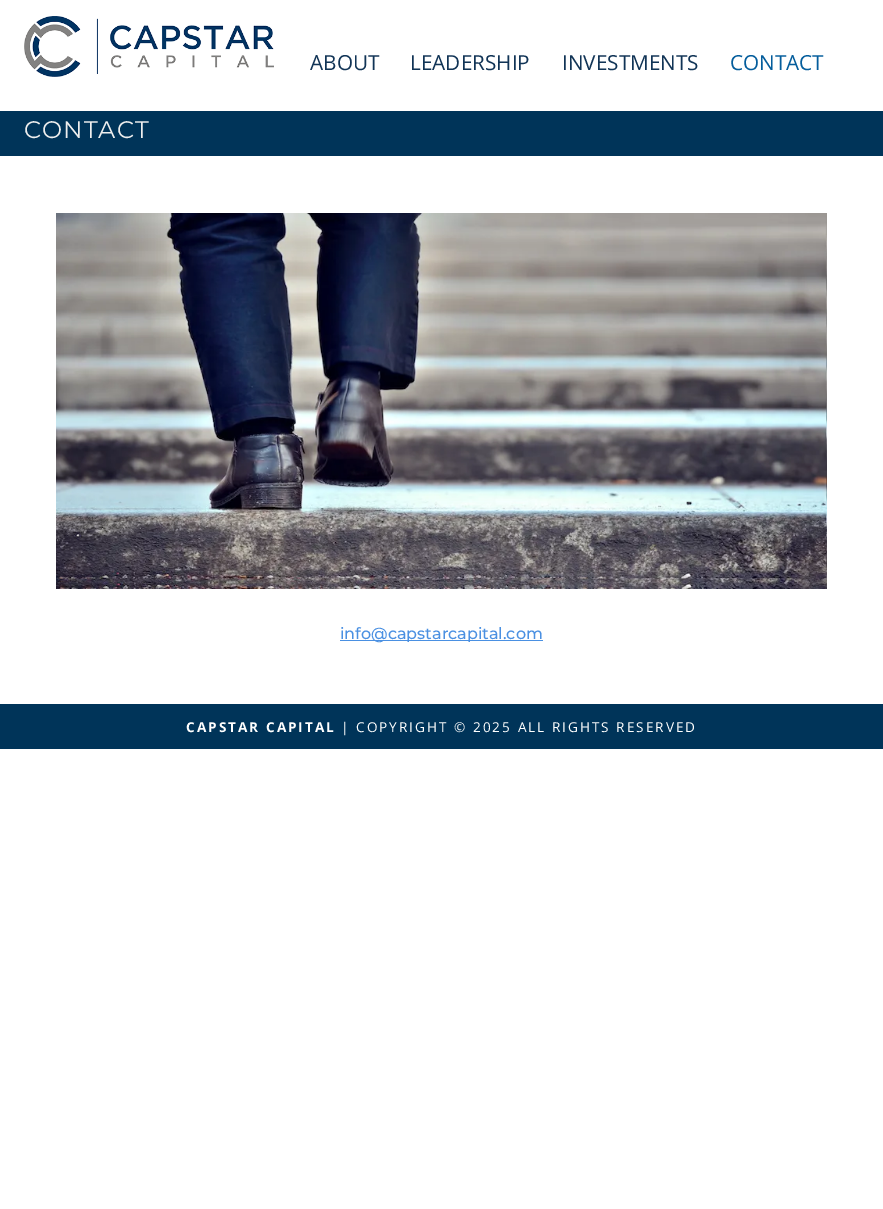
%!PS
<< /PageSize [883 1209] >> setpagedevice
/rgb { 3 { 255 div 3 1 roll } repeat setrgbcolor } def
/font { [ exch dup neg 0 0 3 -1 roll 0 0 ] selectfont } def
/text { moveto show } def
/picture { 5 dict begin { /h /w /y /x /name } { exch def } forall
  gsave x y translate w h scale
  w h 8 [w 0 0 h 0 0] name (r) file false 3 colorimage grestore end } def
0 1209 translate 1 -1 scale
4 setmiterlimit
255 255 255 rgb
0 0 883 1209 rectfill
(img_01.rgb) 24 16 250 61 picture
0 52 89 rgb
0 111 883 45 rectfill
(img_02.rgb) 56 213 771 376 picture
74 144 226 rgb
340 640 203 1 rectfill
0 52 89 rgb
0 704 883 45 rectfill
/OpenSans-Regular 20.75 font
17 52 86 rgb
(ABOUT) 310 70 text
(LEADERSHIP) 410 70 text
(INVESTMENTS) 562 70 text
4 93 156 rgb
(CONTACT) 730 70 text
/Montserrat-Regular 24 font
238 238 238 rgb
24 138 moveto 1 0 (CONTACT) ashow
/Montserrat-Medium 16 font
74 144 226 rgb
(info@capstarcapital.com) 340 639 text
/OpenSans-Bold 13.6 font
255 255 255 rgb
186 732 moveto 2 0 (CAPSTAR CAPITAL) ashow
/OpenSans-Regular 13.6 font
341 732 moveto 2 0 (| COPYRIGHT © 2025 ALL RIGHTS RESERVED) ashow
showpage
